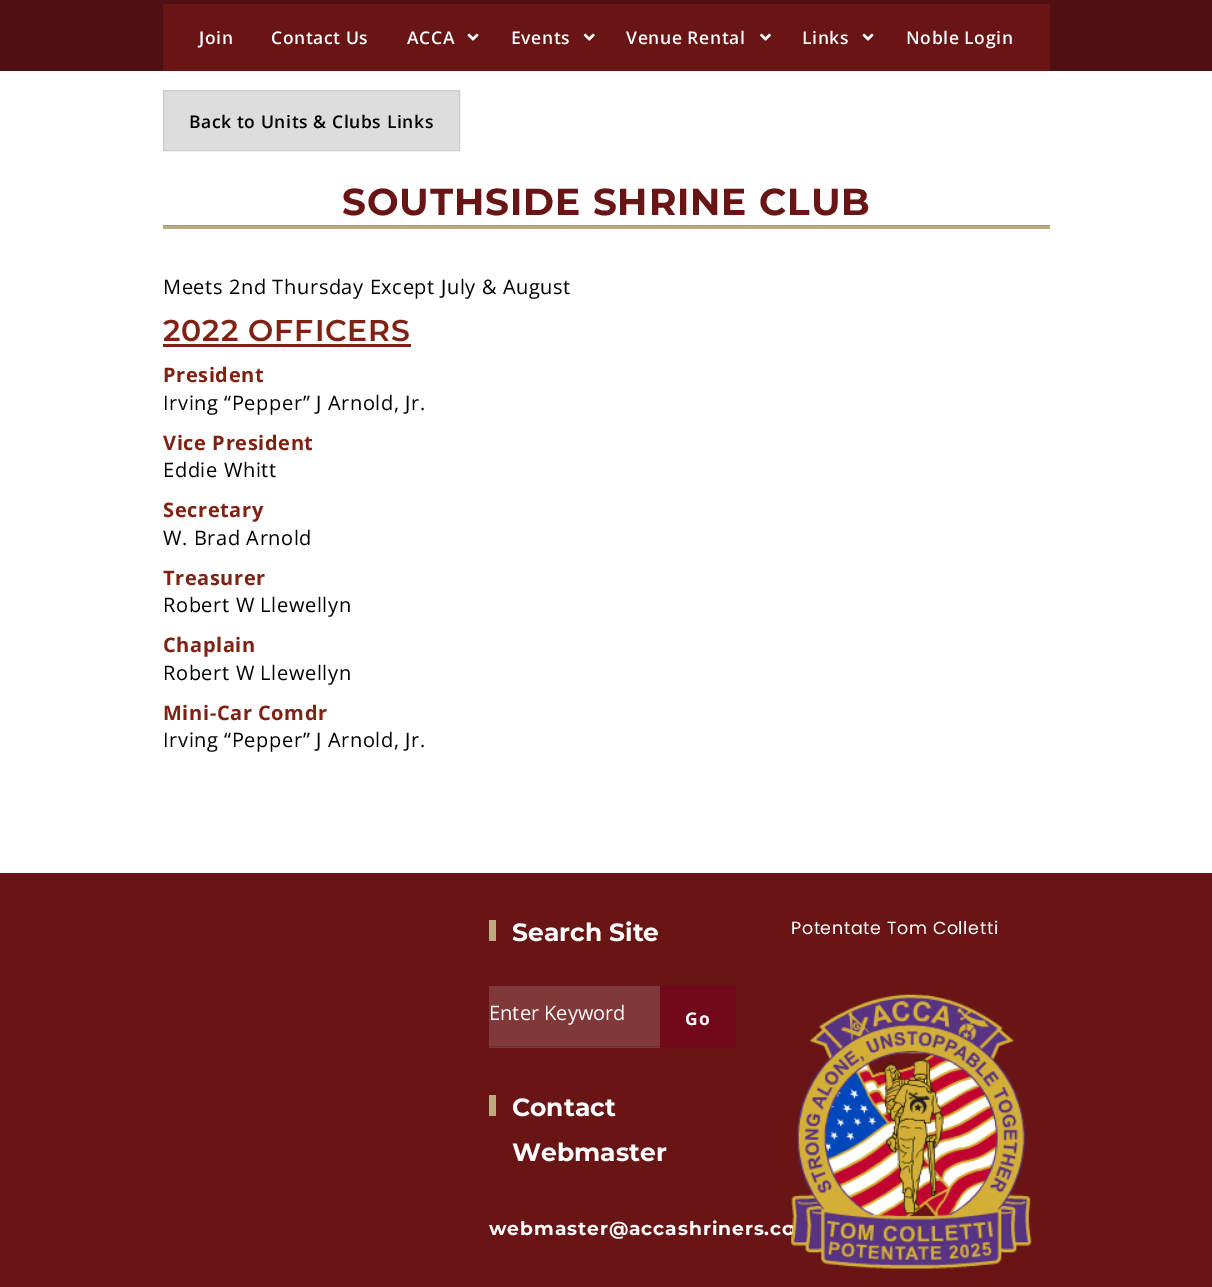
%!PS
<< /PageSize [1212 1287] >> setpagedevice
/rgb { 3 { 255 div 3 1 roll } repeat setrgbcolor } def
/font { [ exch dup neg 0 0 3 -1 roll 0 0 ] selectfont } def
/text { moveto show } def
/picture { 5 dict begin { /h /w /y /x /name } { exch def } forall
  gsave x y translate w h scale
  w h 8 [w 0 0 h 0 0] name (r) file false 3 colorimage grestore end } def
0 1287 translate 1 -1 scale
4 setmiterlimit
255 255 255 rgb
0 0 1212 1287 rectfill
79 16 17 rgb
0 0 1212 71 rectfill
105 21 22 rgb
163 4 887 67 rectfill
(img_01.rgb) 467 33 12 8 picture
(img_02.rgb) 583 33 12 8 picture
(img_03.rgb) 760 33 11 8 picture
(img_01.rgb) 862 33 12 8 picture
221 221 221 rgb
163.5 90.5 moveto 296 0 rlineto 0 60 rlineto -296 0 rlineto closepath gsave fill grestore
204 204 204 rgb
stroke
186 173 123 rgb
163 226 887 3 rectfill
165 151 139 rgb
163 225 887 1 rectfill
128 34 19 rgb
163 344 248 3 rectfill
105 21 22 rgb
0 873 1212 414 rectfill
186 173 123 rgb
489 920 7 21 rectfill
128 56 57 rgb
489 986 171 62 rectfill
109 48 48 rgb
489 1046 171 1 rectfill
114 9 26 rgb
660 986 76 62 rectfill
186 173 123 rgb
489 1095 7 21 rectfill
/OpenSans-SemiBold 17.5 font
255 255 255 rgb
199 44 moveto 0.6 0 (Join) ashow
271 44 moveto 0.6 0 (Contact Us) ashow
407 44 moveto 0.6 0 (ACCA) ashow
511 44 moveto 0.6 0 (Events) ashow
626 44 moveto 0.6 0 (Venue Rental) ashow
802 44 moveto 0.6 0 (Links) ashow
906 44 moveto 0.6 0 (Noble Login) ashow
0 0 0 rgb
189 128 moveto 0.6 0 (Back to Units & Clubs Links) ashow
/Montserrat-Bold 37.5 font
105 21 22 rgb
342 215 moveto 0.9 0 (SOUTHSIDE SHRINE CLUB) ashow
/OpenSans-Regular 20 font
0 0 0 rgb
163 294 moveto 0.6 0 (Meets 2nd Thursday Except July & August) ashow
/Montserrat-SemiBold 30 font
128 34 19 rgb
163 341 moveto 0.9 0 (2022 OFFICERS) ashow
/OpenSans-Bold 20 font
163 382 moveto 0.6 0 (President) ashow
/OpenSans-Regular 20 font
0 0 0 rgb
163 410 moveto 0.6 0 (Irving “Pepper” J Arnold, Jr.) ashow
/OpenSans-Bold 20 font
128 34 19 rgb
163 450 moveto 0.6 0 (Vice President) ashow
/OpenSans-Regular 20 font
0 0 0 rgb
163 477 moveto 0.6 0 (Eddie Whitt) ashow
/OpenSans-Bold 20 font
128 34 19 rgb
163 517 moveto 0.6 0 (Secretary) ashow
/OpenSans-Regular 20 font
0 0 0 rgb
163 545 moveto 0.6 0 (W. Brad Arnold) ashow
/OpenSans-Bold 20 font
128 34 19 rgb
163 585 moveto 0.6 0 (Treasurer) ashow
/OpenSans-Regular 20 font
0 0 0 rgb
163 612 moveto 0.6 0 (Robert W Llewellyn) ashow
/OpenSans-Bold 20 font
128 34 19 rgb
163 652 moveto 0.6 0 (Chaplain) ashow
/OpenSans-Regular 20 font
0 0 0 rgb
163 680 moveto 0.6 0 (Robert W Llewellyn) ashow
/OpenSans-Bold 20 font
128 34 19 rgb
163 720 moveto 0.6 0 (Mini-Car Comdr) ashow
/OpenSans-Regular 20 font
0 0 0 rgb
163 747 moveto 0.6 0 (Irving “Pepper” J Arnold, Jr.) ashow
/Montserrat-Bold 25 font
255 255 255 rgb
(Search Site) 512 941 text
/OpenSans-Regular 20 font
(Enter Keyword) 489 1020 text
/OpenSans-Bold 17.5 font
685 1025 moveto 1 0 (Go) ashow
/Montserrat-Bold 25 font
(Contact) 512 1116 text
(Webmaster) 512 1161 text
/Montserrat-Bold 18.75 font
489 1235 moveto 0.9 0 (webmaster@accashriners.co) ashow
/Poppins-Regular 17.5 font
791 934 moveto 0.6 0 (Potentate Tom Colletti) ashow
(img_04.rgb) 791 994 241 275 picture
showpage
